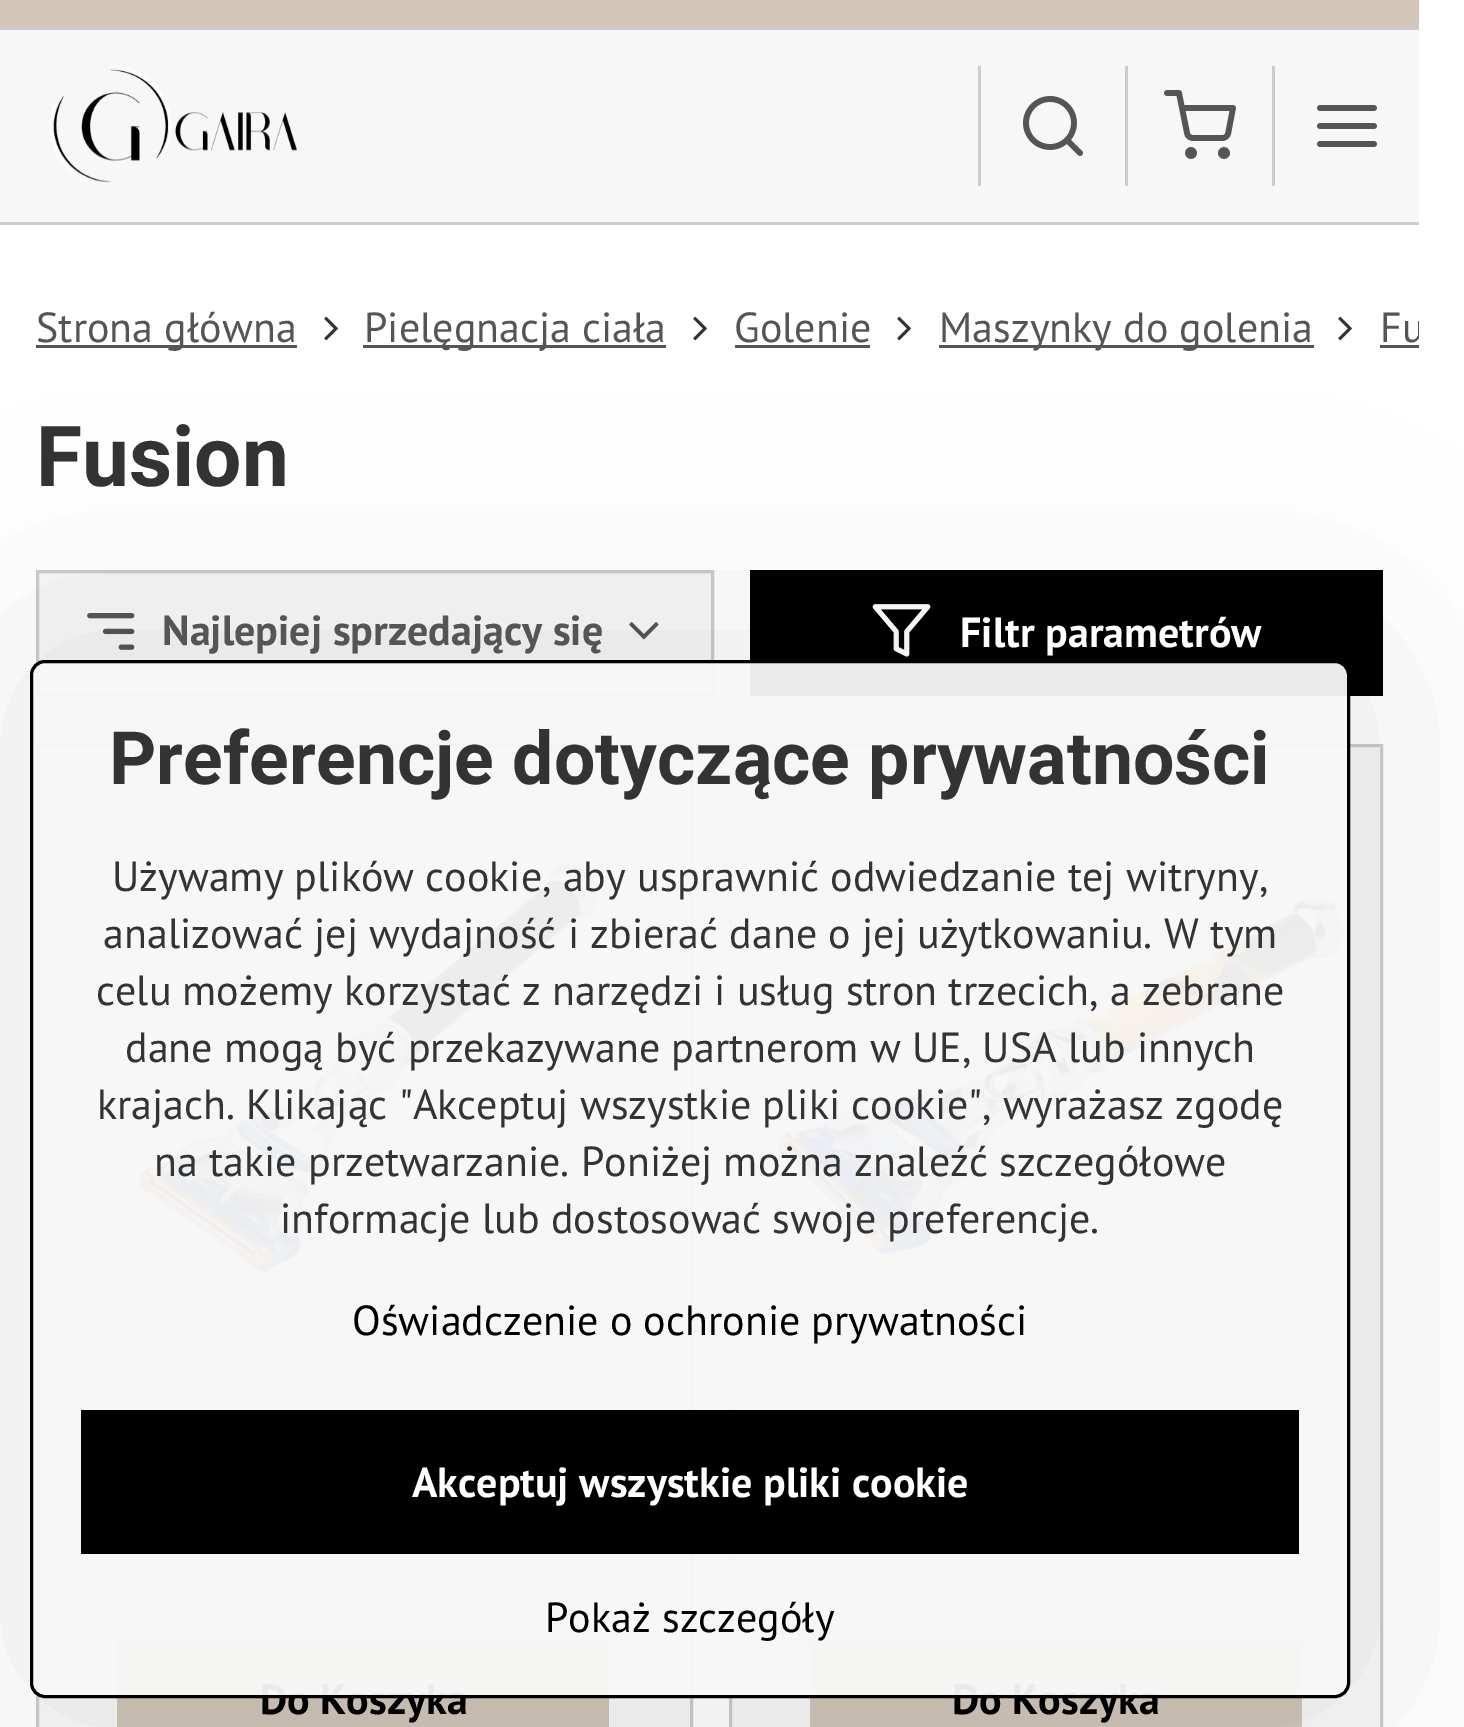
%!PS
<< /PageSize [1464 1727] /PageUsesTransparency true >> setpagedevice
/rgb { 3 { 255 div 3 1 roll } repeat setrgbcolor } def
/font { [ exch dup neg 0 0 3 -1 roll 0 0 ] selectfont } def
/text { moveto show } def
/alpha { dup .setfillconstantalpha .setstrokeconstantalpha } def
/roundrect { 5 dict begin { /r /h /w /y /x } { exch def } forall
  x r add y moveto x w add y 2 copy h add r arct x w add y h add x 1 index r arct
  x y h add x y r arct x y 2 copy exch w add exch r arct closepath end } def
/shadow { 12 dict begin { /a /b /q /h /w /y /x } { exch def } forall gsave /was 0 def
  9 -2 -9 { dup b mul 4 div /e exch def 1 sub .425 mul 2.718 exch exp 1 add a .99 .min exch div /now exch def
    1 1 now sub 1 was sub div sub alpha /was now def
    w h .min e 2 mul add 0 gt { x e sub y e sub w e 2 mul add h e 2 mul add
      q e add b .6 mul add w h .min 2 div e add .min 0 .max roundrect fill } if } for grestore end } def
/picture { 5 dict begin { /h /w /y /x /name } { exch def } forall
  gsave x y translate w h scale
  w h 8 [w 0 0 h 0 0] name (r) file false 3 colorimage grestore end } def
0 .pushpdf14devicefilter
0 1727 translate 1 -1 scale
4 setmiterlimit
255 255 255 rgb
0 0 1464 1727 rectfill
209 198 184 rgb
0 0 1419 27 rectfill
204 204 204 rgb
0 27 1419 3 rectfill
247 247 247 rgb
0 30 1419 192 rectfill
204 204 204 rgb
0 222 1419 3 rectfill
(img_01.rgb) 50 66 247 119 picture
978 66 3 120 rectfill
(img_02.rgb) 1023 96 60 60 picture
1125 66 3 120 rectfill
(img_03.rgb) 1164 90 72 69 picture
1272 66 3 120 rectfill
(img_04.rgb) 1317 105 60 42 picture
85 85 85 rgb
36 345 261 3 rectfill
(img_05.rgb) 324 316 14 25 picture
363 345 303 3 rectfill
(img_05.rgb) 693 316 14 25 picture
735 345 135 3 rectfill
(img_05.rgb) 897 316 14 25 picture
939 345 375 3 rectfill
(img_05.rgb) 1338 316 14 25 picture
1380 345 39 3 rectfill
247 247 247 rgb
37.5 571.5 moveto 675 0 rlineto 0 123 rlineto -675 0 rlineto closepath gsave fill grestore
204 204 204 rgb
3 setlinewidth
stroke
(img_06.rgb) 87 613 48 37 picture
(img_07.rgb) 629 622 30 18 picture
0 0 0 rgb
750 570 633 126 rectfill
(img_08.rgb) 872 604 59 53 picture
247 247 247 rgb
37.5 745.5 moveto 654 0 rlineto 0 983 rlineto -654 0 rlineto closepath gsave fill grestore
204 204 204 rgb
stroke
(img_09.rgb) 75 783 579 576 picture
209 198 184 rgb
117 1641 492 86 rectfill
247 247 247 rgb
730.5 745.5 moveto 651 0 rlineto 0 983 rlineto -651 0 rlineto closepath gsave fill grestore
204 204 204 rgb
stroke
(img_10.rgb) 768 783 576 576 picture
209 198 184 rgb
810 1641 492 86 rectfill
gsave
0 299 moveto 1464 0 rlineto 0 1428 rlineto -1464 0 rlineto closepath 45 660 moveto 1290 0 rlineto 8.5 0 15 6.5 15 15 rcurveto 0 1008 rlineto 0 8.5 -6.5 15 -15 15 rcurveto -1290 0 rlineto -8.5 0 -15 -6.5 -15 -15 rcurveto 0 -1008 rlineto 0 -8.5 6.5 -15 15 -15 rcurveto closepath eoclip newpath
0 0 0 rgb
30 660 1320 1038 15 120 0.1 shadow
grestore
/PTSans-Regular 42 font
85 85 85 rgb
(Strona główna) 36 342 text
(Pielęgnacja ciała) 364 342 text
(Golenie) 734 342 text
(Maszynky do golenia) 939 342 text
gsave
0 297 1419 63 rectclip
(Fu) 1380 342 text
grestore
/Roboto-Bold 84 font
51 51 51 rgb
(Fusion) 36 486 text
/PTSans-Bold 42 font
85 85 85 rgb
(Najlepiej sprzedający się) 162 645 text
255 255 255 rgb
(Filtr parametrów) 960 647 text
0 0 0 rgb
(Do Koszyka) 260 1714 text
(Do Koszyka) 952 1714 text
0.95 alpha
247 247 247 rgb
31.5 661.5 1317 1035 13.5 roundrect fill
1 alpha
0 0 0 rgb
31.5 661.5 1317 1035 13.5 roundrect stroke
/Roboto-Bold 73.5 font
51 51 51 rgb
(Preferencje dotyczące prywatności) 109 784 text
/PTSans-Regular 42 font
(Używamy plików cookie, aby usprawnić odwiedzanie tej witryny,) 112 891 text
(analizować jej wydajność i zbierać dane o jej użytkowaniu. W tym) 103 948 text
(celu możemy korzystać z narzędzi i usług stron trzecich, a zebrane) 96 1005 text
(dane mogą być przekazywane partnerom w UE, USA lub innych) 125 1062 text
(krajach. Klikając "Akceptuj wszystkie pliki cookie", wyrażasz zgodę) 97 1119 text
(na takie przetwarzanie. Poniżej można znaleźć szczegółowe) 154 1176 text
(informacje lub dostosować swoje preferencje.) 280 1233 text
0 0 0 rgb
(Oświadczenie o ochronie prywatności) 352 1335 text
81 1410 1218 144 rectfill
/PTSans-Bold 42 font
255 255 255 rgb
(Akceptuj wszystkie pliki cookie) 412 1497 text
/PTSans-Regular 42 font
0 0 0 rgb
(Pokaż szczegóły) 545 1632 text
.poppdf14devicefilter showpage
